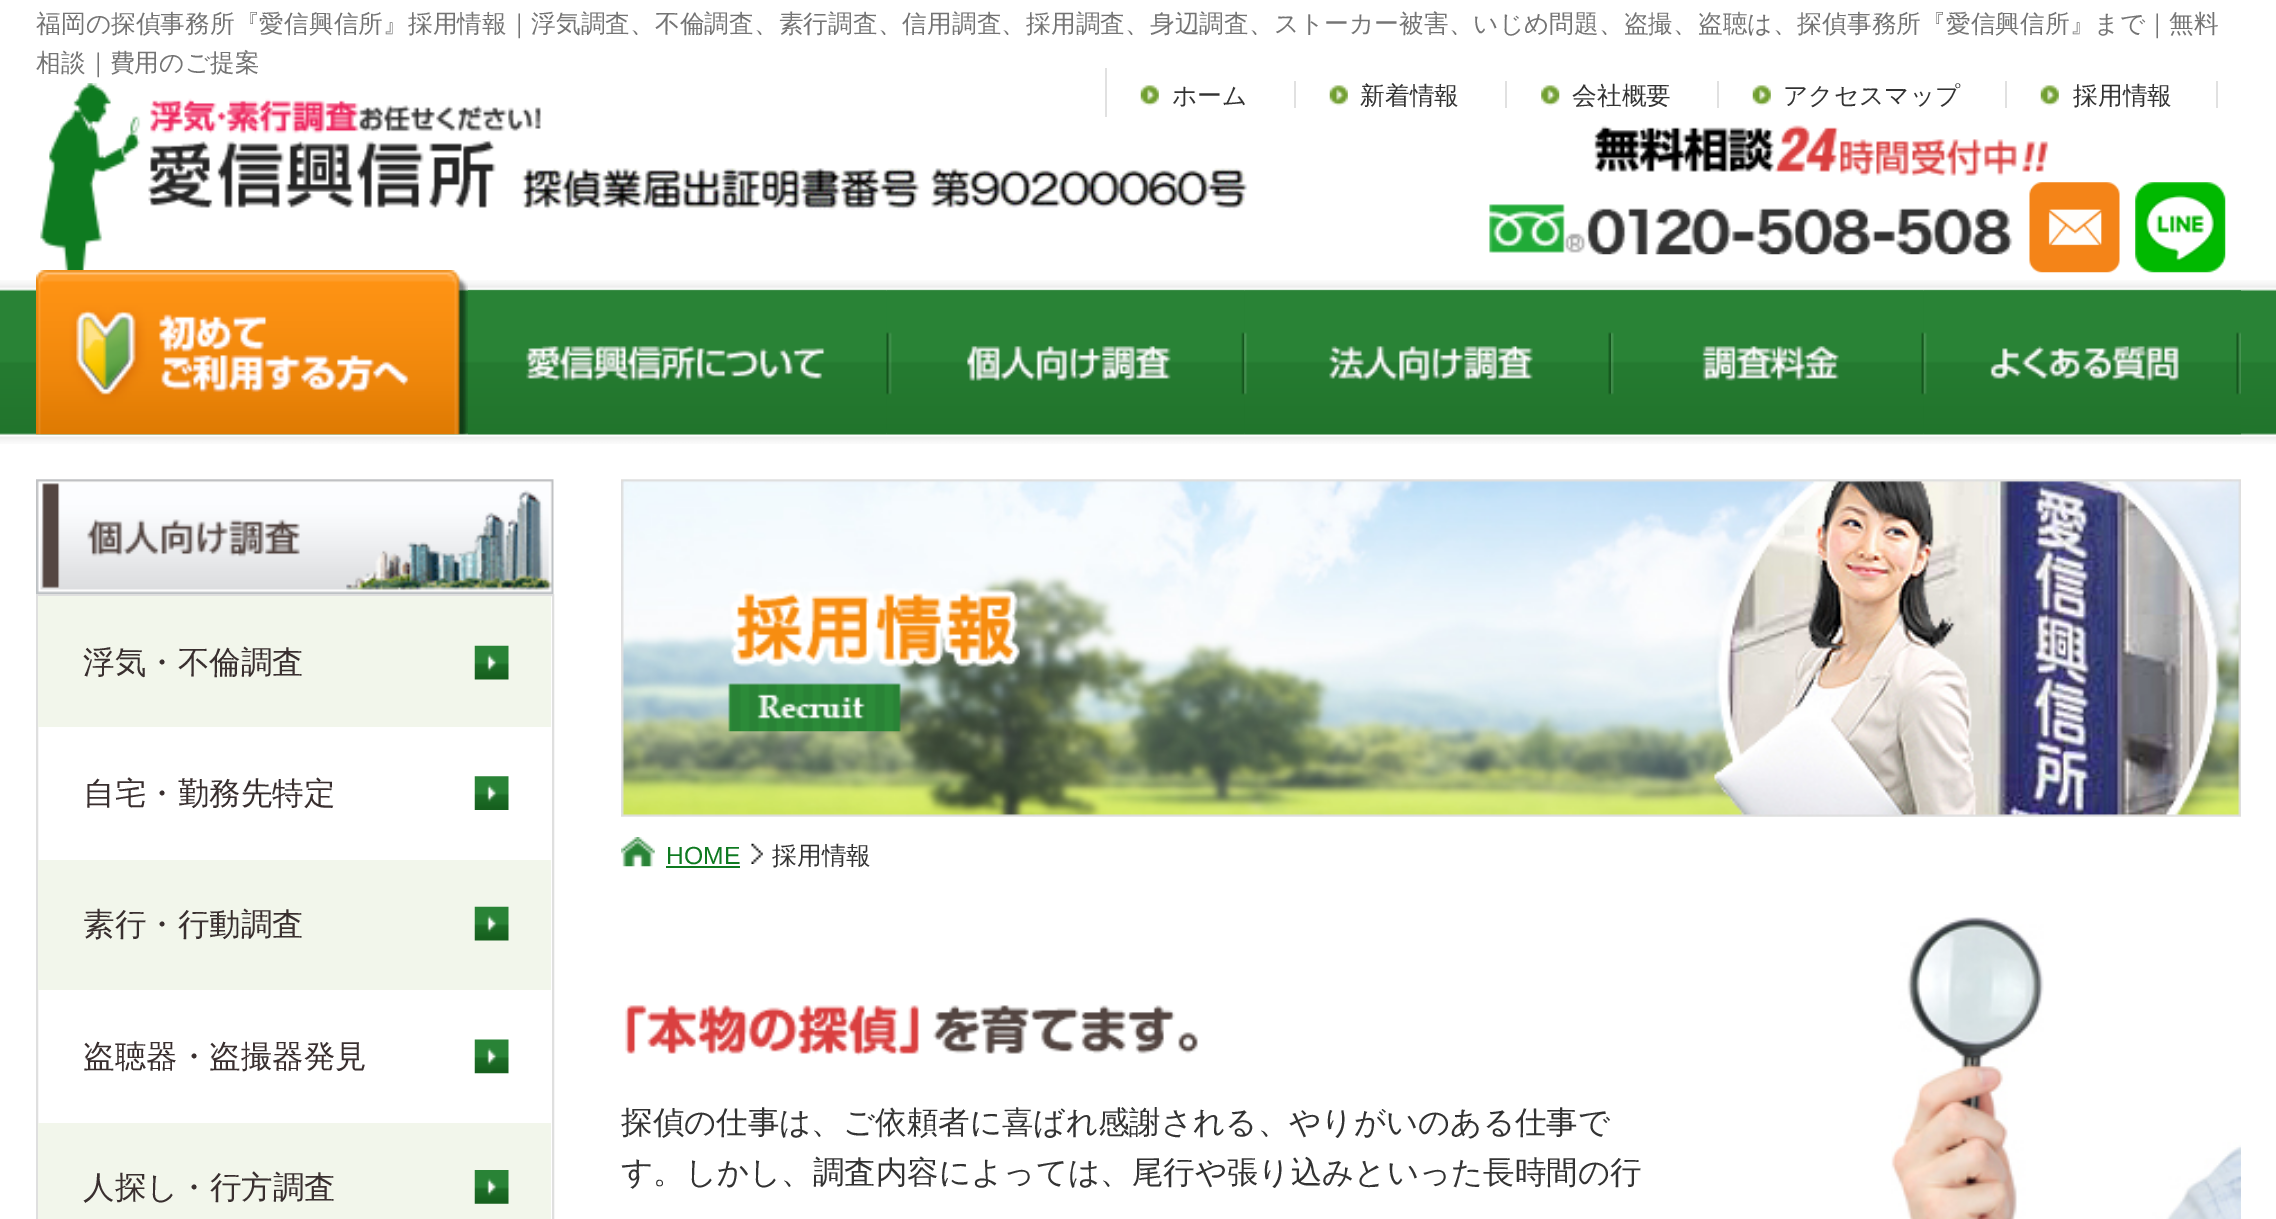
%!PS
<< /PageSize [2276 1219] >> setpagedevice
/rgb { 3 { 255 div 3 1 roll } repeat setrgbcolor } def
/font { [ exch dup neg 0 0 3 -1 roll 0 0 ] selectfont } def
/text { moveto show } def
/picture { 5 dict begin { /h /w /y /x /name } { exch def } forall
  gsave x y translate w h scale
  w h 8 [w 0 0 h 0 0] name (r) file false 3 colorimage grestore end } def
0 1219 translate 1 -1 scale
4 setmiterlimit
255 255 255 rgb
0 0 2276 1219 rectfill
(img_01.rgb) 40 83 501 187 picture
(img_02.rgb) 521 168 727 42 picture
225 225 225 rgb
1105 68 2 49 rectfill
(img_03.rgb) 1140 85 19 21 picture
1294 81 2 27 rectfill
(img_04.rgb) 1329 85 19 21 picture
1505 81 2 27 rectfill
(img_05.rgb) 1541 85 19 21 picture
1717 81 2 27 rectfill
(img_04.rgb) 1752 85 19 21 picture
2005 81 2 27 rectfill
(img_04.rgb) 2040 85 19 21 picture
2216 81 2 27 rectfill
(img_06.rgb) 1594 125 455 51 picture
(img_07.rgb) 1489 204 524 51 picture
(img_08.rgb) 2029 182 91 91 picture
(img_09.rgb) 2135 182 91 91 picture
(img_10.rgb) 0 280 2276 164 picture
(img_11.rgb) 36 270 432 165 picture
(img_12.rgb) 468 290 419 145 picture
(img_13.rgb) 886 290 359 145 picture
(img_14.rgb) 1244 290 367 145 picture
(img_15.rgb) 1611 290 313 145 picture
(img_16.rgb) 1923 290 318 145 picture
(img_17.rgb) 36 479 518 115 picture
223 223 223 rgb
2 setlinewidth
37 595 516 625 rectstroke
242 246 235 rgb
38 596 513 131 rectfill
(img_18.rgb) 474 645 35 35 picture
(img_19.rgb) 474 776 35 34 picture
38 860 513 130 rectfill
(img_18.rgb) 474 906 35 35 picture
(img_20.rgb) 474 1039 35 35 picture
38 1123 513 96 rectfill
(img_21.rgb) 474 1170 35 34 picture
(img_22.rgb) 621 479 1620 338 picture
(img_23.rgb) 728 588 292 144 picture
(img_24.rgb) 621 837 34 30 picture
14 122 32 rgb
666 866 74 2 rectfill
(img_25.rgb) 751 843 12 21 picture
(img_26.rgb) 625 1005 573 51 picture
(img_27.rgb) 1891 917 350 302 picture
/WenQuanYiZenHei-Medium 24.75 font
116 116 116 rgb
(福岡の探偵事務所『愛信興信所』採用情報｜浮気調査、不倫調査、素行調査、信用調査、採用調査、身辺調査、ストーカー被害、いじめ問題、盗撮、盗聴は、探偵事務所『愛信興信所』まで｜無料) 36 32 text
(相談｜費用のご提案) 36 71 text
51 51 51 rgb
(ホーム) 1172 104 text
(新着情報) 1360 104 text
(会社概要) 1572 104 text
(アクセスマップ) 1783 104 text
(採用情報) 2073 104 text
/WenQuanYiZenHei-Medium 31.5 font
57 47 47 rgb
(浮気・不倫調査) 83 673 text
(自宅・勤務先特定) 83 804 text
(素行・行動調査) 83 935 text
(盗聴器・盗撮器発見) 83 1067 text
(人探し・行方調査) 83 1198 text
/LiberationSans-Regular 24.75 font
14 122 32 rgb
(HOME) 666 864 text
/WenQuanYiZenHei-Medium 24.75 font
51 51 51 rgb
(採用情報) 772 864 text
/WenQuanYiZenHei-Medium 31.5 font
(探偵の仕事は、ご依頼者に喜ばれ感謝される、やりがいのある仕事で) 621 1133 text
(す。しかし、調査内容によっては、尾行や張り込みといった長時間の行) 621 1183 text
showpage
